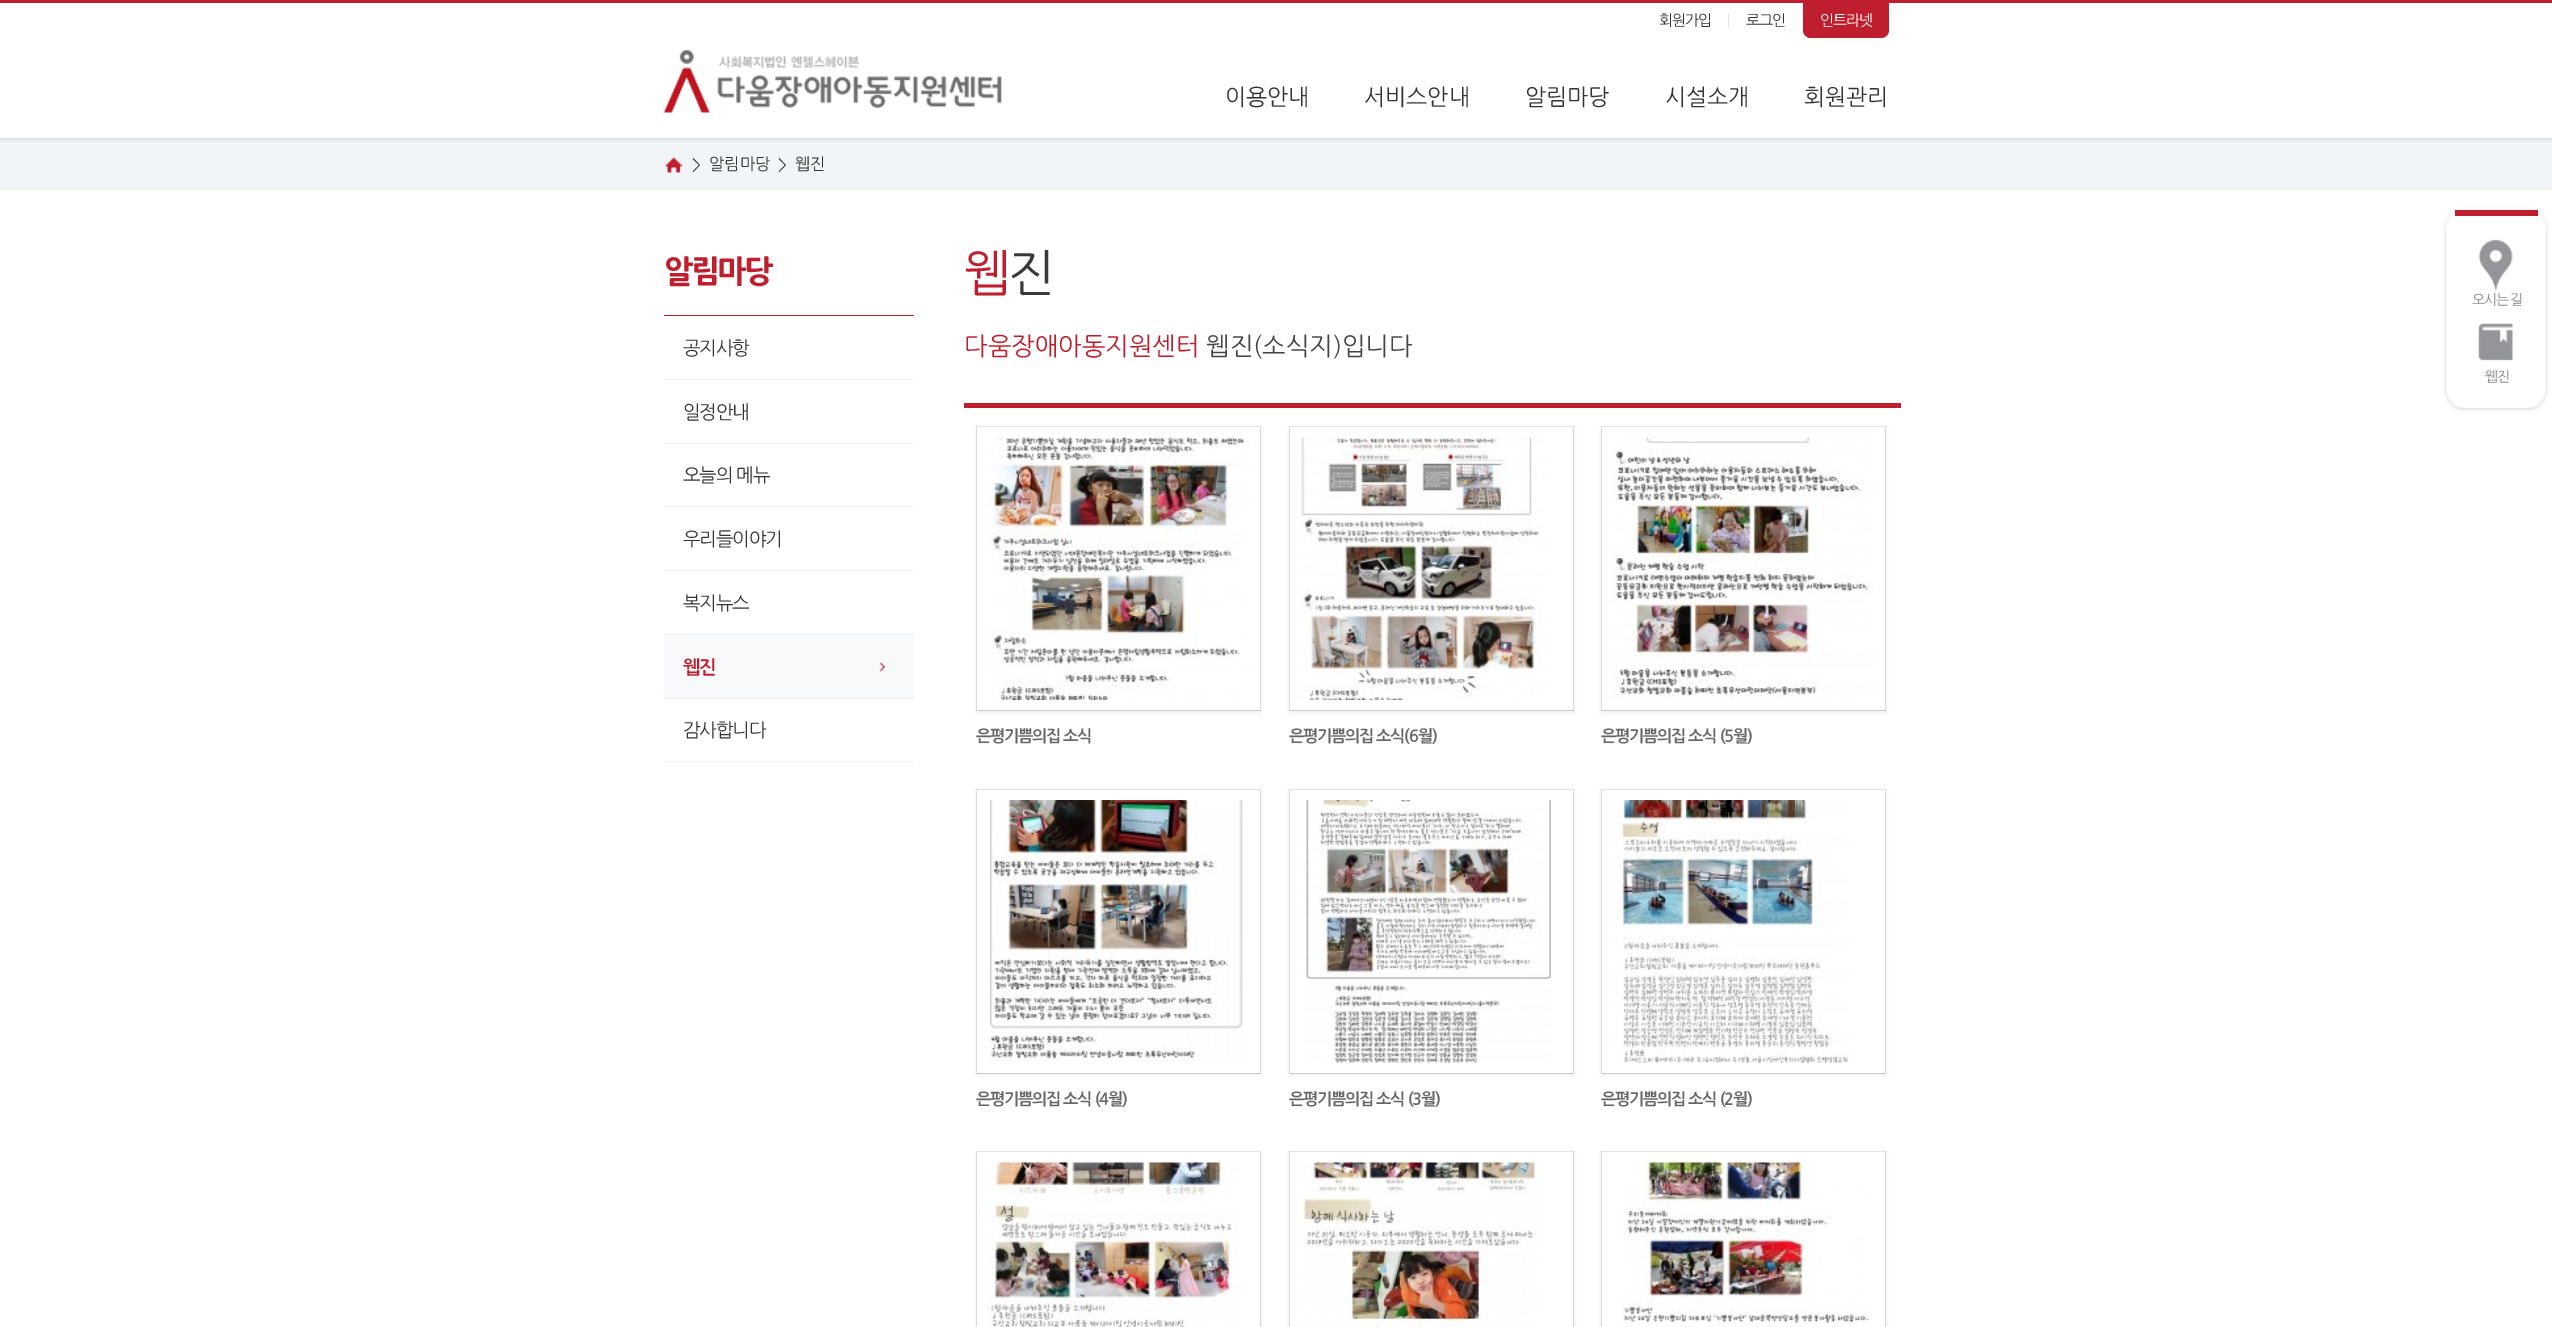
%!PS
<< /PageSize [2552 1327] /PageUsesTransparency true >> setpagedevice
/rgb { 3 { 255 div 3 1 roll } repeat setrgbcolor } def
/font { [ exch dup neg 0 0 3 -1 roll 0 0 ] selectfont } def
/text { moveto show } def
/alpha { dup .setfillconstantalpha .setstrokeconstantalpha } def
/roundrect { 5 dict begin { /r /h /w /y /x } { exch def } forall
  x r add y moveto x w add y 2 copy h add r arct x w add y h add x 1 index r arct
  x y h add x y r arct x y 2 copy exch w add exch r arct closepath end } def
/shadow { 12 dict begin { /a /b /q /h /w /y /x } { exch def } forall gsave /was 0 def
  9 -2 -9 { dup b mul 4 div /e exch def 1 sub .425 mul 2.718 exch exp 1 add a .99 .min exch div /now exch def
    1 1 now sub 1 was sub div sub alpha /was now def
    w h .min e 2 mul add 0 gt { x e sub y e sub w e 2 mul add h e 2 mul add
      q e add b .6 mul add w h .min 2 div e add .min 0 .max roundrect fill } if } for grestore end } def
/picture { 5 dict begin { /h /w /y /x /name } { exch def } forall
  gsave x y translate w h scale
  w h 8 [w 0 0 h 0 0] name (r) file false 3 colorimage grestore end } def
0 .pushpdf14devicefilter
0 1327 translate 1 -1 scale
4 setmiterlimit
242 245 247 rgb
0 0 2552 1327 rectfill
(img_01.rgb) 664 157 19 16 picture
255 255 255 rgb
0 190 2552 1137 rectfill
239 242 244 rgb
0 189 2552 1 rectfill
190 30 45 rgb
664 315 250 1 rectfill
240 240 240 rgb
664 379 250 1 rectfill
664 443 250 1 rectfill
664 506 250 1 rectfill
664 570 250 1 rectfill
664 634 250 1 rectfill
247 249 251 rgb
664 635 250 63 rectfill
(img_02.rgb) 879 662 7 10 picture
240 240 240 rgb
664 698 250 1 rectfill
664 761 250 1 rectfill
190 30 45 rgb
964 403 937 5 rectfill
238 238 238 rgb
976 428 285 285 0 2 1 shadow
255 255 255 rgb
977 427 283 283 rectfill
228 228 228 rgb
976 426 285 1 rectfill
218 218 218 rgb
1260 426 1 285 rectfill
201 201 201 rgb
976 710 285 1 rectfill
218 218 218 rgb
976 426 1 285 rectfill
(img_03.rgb) 987 437 263 263 picture
238 238 238 rgb
1289 428 285 285 0 2 1 shadow
255 255 255 rgb
1290 427 283 283 rectfill
228 228 228 rgb
1289 426 285 1 rectfill
218 218 218 rgb
1573 426 1 285 rectfill
201 201 201 rgb
1289 710 285 1 rectfill
218 218 218 rgb
1289 426 1 285 rectfill
(img_04.rgb) 1300 437 248 263 picture
238 238 238 rgb
1601 428 285 285 0 2 1 shadow
255 255 255 rgb
1602 427 283 283 rectfill
228 228 228 rgb
1601 426 285 1 rectfill
218 218 218 rgb
1885 426 1 285 rectfill
201 201 201 rgb
1601 710 285 1 rectfill
218 218 218 rgb
1601 426 1 285 rectfill
(img_05.rgb) 1612 437 263 263 picture
238 238 238 rgb
976 790 285 285 0 2 1 shadow
255 255 255 rgb
977 790 283 283 rectfill
228 228 228 rgb
976 789 285 1 rectfill
218 218 218 rgb
1260 789 1 285 rectfill
201 201 201 rgb
976 1073 285 1 rectfill
218 218 218 rgb
976 789 1 285 rectfill
(img_06.rgb) 987 800 256 263 picture
238 238 238 rgb
1289 790 285 285 0 2 1 shadow
255 255 255 rgb
1290 790 283 283 rectfill
228 228 228 rgb
1289 789 285 1 rectfill
218 218 218 rgb
1573 789 1 285 rectfill
201 201 201 rgb
1289 1073 285 1 rectfill
218 218 218 rgb
1289 789 1 285 rectfill
(img_07.rgb) 1303 800 249 263 picture
238 238 238 rgb
1601 790 285 285 0 2 1 shadow
255 255 255 rgb
1602 790 283 283 rectfill
228 228 228 rgb
1601 789 285 1 rectfill
218 218 218 rgb
1885 789 1 285 rectfill
201 201 201 rgb
1601 1073 285 1 rectfill
218 218 218 rgb
1601 789 1 285 rectfill
(img_08.rgb) 1612 800 238 263 picture
238 238 238 rgb
976 1153 285 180 0 2 1 shadow
255 255 255 rgb
977 1152 283 175 rectfill
228 228 228 rgb
976 1151 285 1 rectfill
218 218 218 rgb
1260 1151 1 176 rectfill
976 1151 1 176 rectfill
(img_09.rgb) 987 1162 252 165 picture
238 238 238 rgb
1289 1153 285 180 0 2 1 shadow
255 255 255 rgb
1290 1152 283 175 rectfill
228 228 228 rgb
1289 1151 285 1 rectfill
218 218 218 rgb
1573 1151 1 176 rectfill
1289 1151 1 176 rectfill
(img_10.rgb) 1300 1162 241 165 picture
238 238 238 rgb
1601 1153 285 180 0 2 1 shadow
255 255 255 rgb
1602 1152 283 175 rectfill
228 228 228 rgb
1601 1151 285 1 rectfill
218 218 218 rgb
1885 1151 1 176 rectfill
1601 1151 1 176 rectfill
(img_11.rgb) 1623 1162 249 165 picture
80 80 80 rgb
0 3 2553 138 0 1 0.1 shadow
255 255 255 rgb
0 3 2552 135 rectfill
190 30 45 rgb
0 0 2552 3 rectfill
219 221 225 rgb
0 138 2552 1 rectfill
(img_12.rgb) 663 49 339 64 picture
229 229 229 rgb
1728 13 1 15 rectfill
190 30 45 rgb
1803 3 moveto 86 0 rlineto 0 27 rlineto 0 4.5 -3.5 8 -8 8 rcurveto -70 0 rlineto -4.5 0 -8 -3.5 -8 -8 rcurveto closepath fill
gsave
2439 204 moveto 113 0 rlineto 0 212 rlineto -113 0 rlineto closepath 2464 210 moveto 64 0 rlineto 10 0 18 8 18 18 rcurveto 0 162 rlineto 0 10 -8 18 -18 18 rcurveto -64 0 rlineto -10 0 -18 -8 -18 -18 rcurveto 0 -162 rlineto 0 -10 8 -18 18 -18 rcurveto closepath eoclip newpath
40 40 40 rgb
2446 211 100 198 18 2 0.2 shadow
grestore
0.6 alpha
255 255 255 rgb
2446 210 100 198 18 roundrect fill
1 alpha
190 30 45 rgb
2455 210 83 6 rectfill
(img_13.rgb) 2478 239 35 53 picture
(img_14.rgb) 2478 323 35 38 picture
/NanumGothic-Regular 16.25 font
51 51 51 rgb
(>) 692 170 text
(알림마당) 709 169 text
(>) 778 170 text
(웹진) 795 169 text
/NanumGothic-ExtraBold 31 font
190 30 45 rgb
664 281 moveto -2.5 0 (알림마당) ashow
/NanumGothic-Regular 18.75 font
51 51 51 rgb
683 354 moveto -1.25 0 (공지사항) ashow
683 418 moveto -1.25 0 (일정안내) ashow
683 481 moveto -1.25 0 (오늘의 메뉴) ashow
683 545 moveto -1.25 0 (우리들이야기) ashow
683 609 moveto -1.25 0 (복지뉴스) ashow
/NanumGothic-Bold 18.75 font
190 30 45 rgb
683 673 moveto -1.25 0 (웹진) ashow
/NanumGothic-Regular 18.75 font
51 51 51 rgb
683 736 moveto -1.25 0 (감사합니다) ashow
/NanumGothic-Regular 50 font
190 30 45 rgb
964 289 moveto -2.5 0 (웹) ashow
60 56 57 rgb
1008 289 moveto -2.5 0 (진) ashow
/NanumGothic-Regular 25 font
190 30 45 rgb
(다움장애아동지원센터) 964 354 text
68 68 68 rgb
(웹진\(소식지\)입니다) 1206 354 text
/NanumGothic-Bold 16.25 font
102 102 102 rgb
976 741 moveto -1.25 0 (은평기쁨의집 소식) ashow
1289 741 moveto -1.25 0 (은평기쁨의집 소식\(6월\)) ashow
1601 741 moveto -1.25 0 (은평기쁨의집 소식 \(5월\)) ashow
976 1104 moveto -1.25 0 (은평기쁨의집 소식 \(4월\)) ashow
1289 1104 moveto -1.25 0 (은평기쁨의집 소식 \(3월\)) ashow
1601 1104 moveto -1.25 0 (은평기쁨의집 소식 \(2월\)) ashow
/NanumGothic-Regular 15 font
51 51 51 rgb
1659 25 moveto -1.25 0 (회원가입) ashow
1746 25 moveto -1.25 0 (로그인) ashow
255 255 255 rgb
1820 25 moveto -1.25 0 (인트라넷) ashow
/NanumGothic-Regular 22.5 font
51 51 51 rgb
(이용안내) 1225 104 text
(서비스안내) 1364 104 text
(알림마당) 1525 104 text
(시설소개) 1665 104 text
(회원관리) 1804 104 text
/NanumGothic-Regular 14 font
129 132 138 rgb
2472 304 moveto -1.25 0 (오시는 길) ashow
2485 381 moveto -1.25 0 (웹진) ashow
.poppdf14devicefilter showpage
